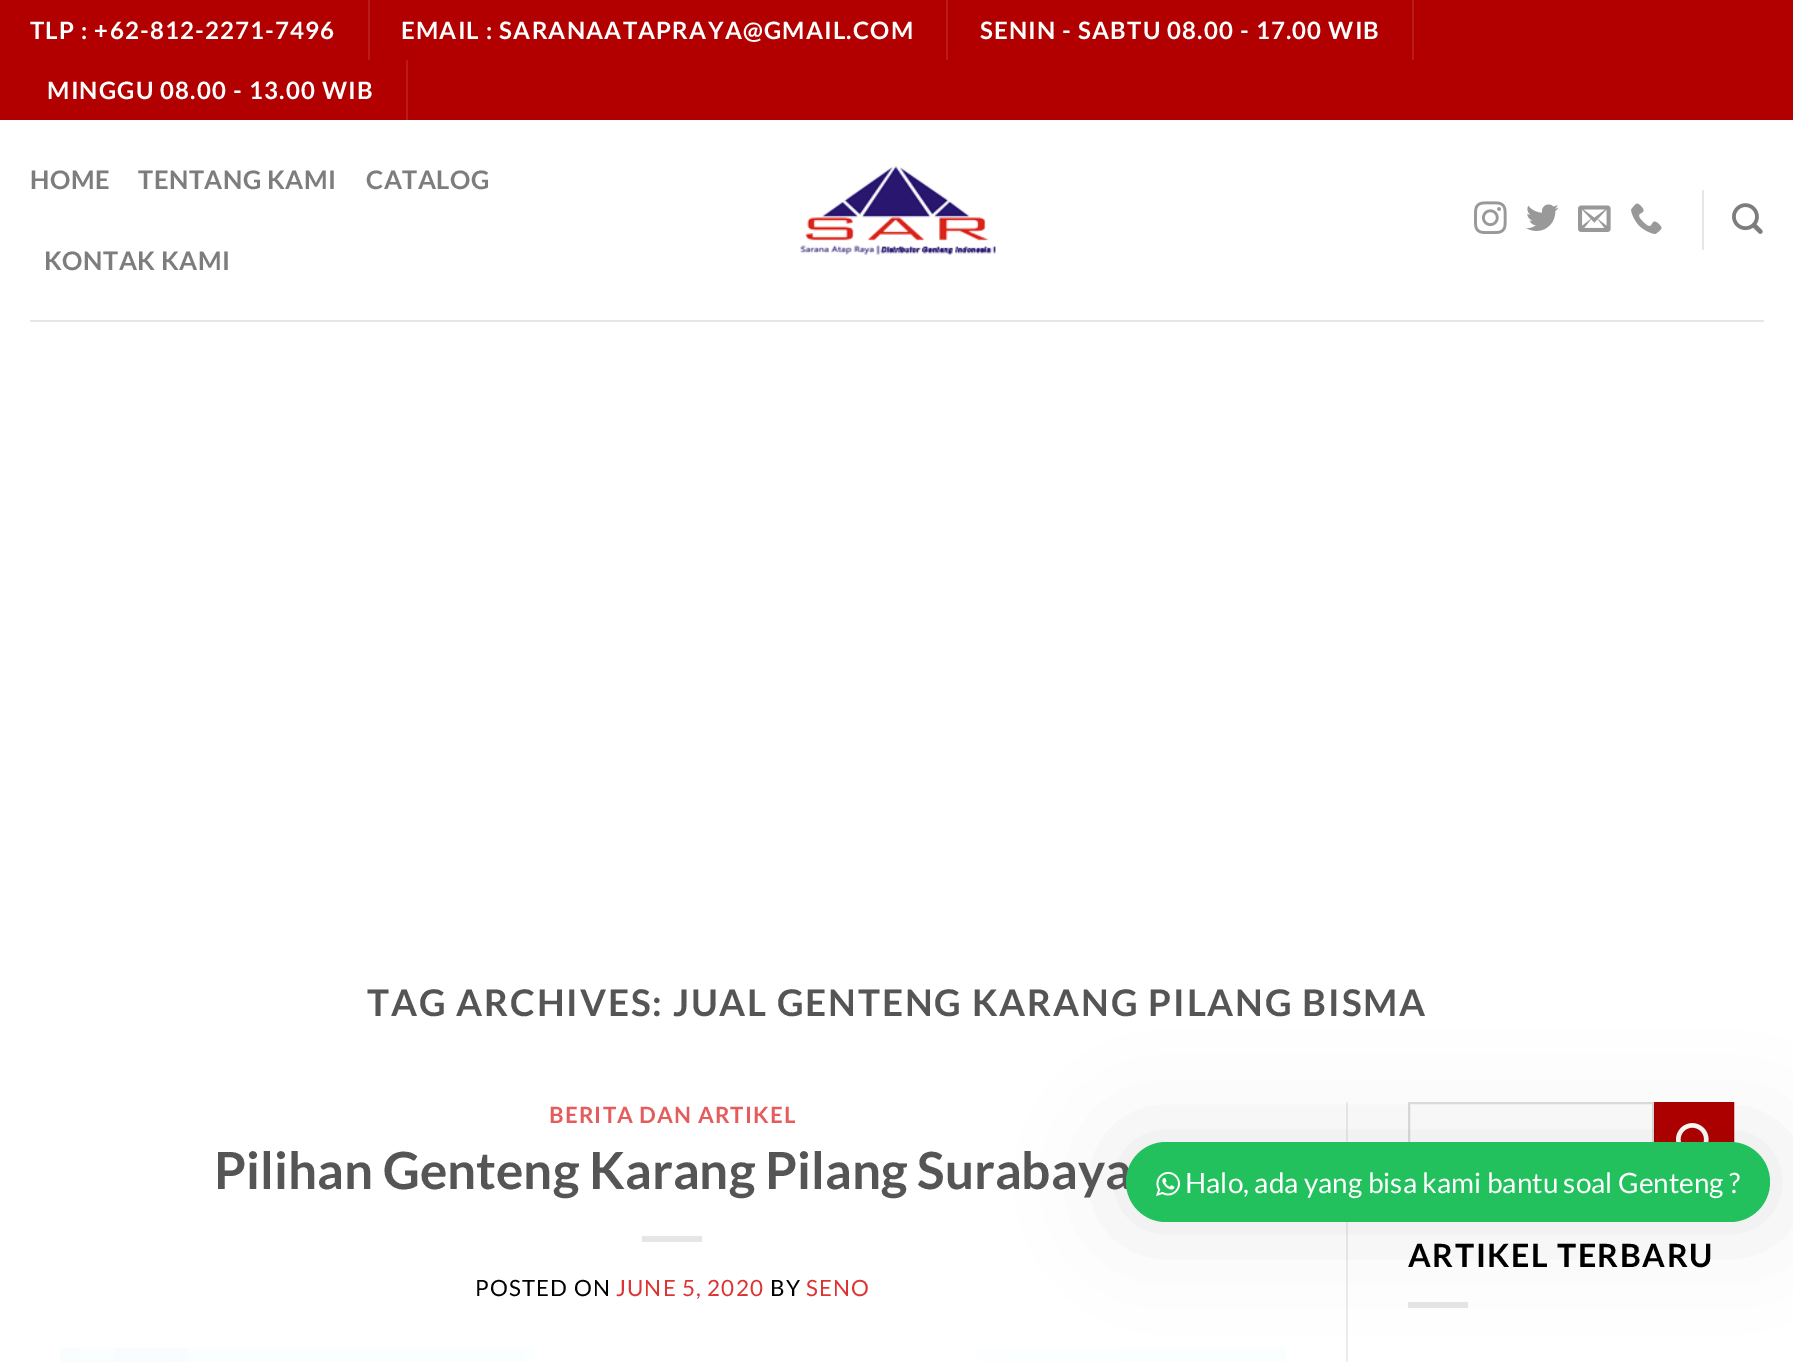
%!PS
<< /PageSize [1793 1362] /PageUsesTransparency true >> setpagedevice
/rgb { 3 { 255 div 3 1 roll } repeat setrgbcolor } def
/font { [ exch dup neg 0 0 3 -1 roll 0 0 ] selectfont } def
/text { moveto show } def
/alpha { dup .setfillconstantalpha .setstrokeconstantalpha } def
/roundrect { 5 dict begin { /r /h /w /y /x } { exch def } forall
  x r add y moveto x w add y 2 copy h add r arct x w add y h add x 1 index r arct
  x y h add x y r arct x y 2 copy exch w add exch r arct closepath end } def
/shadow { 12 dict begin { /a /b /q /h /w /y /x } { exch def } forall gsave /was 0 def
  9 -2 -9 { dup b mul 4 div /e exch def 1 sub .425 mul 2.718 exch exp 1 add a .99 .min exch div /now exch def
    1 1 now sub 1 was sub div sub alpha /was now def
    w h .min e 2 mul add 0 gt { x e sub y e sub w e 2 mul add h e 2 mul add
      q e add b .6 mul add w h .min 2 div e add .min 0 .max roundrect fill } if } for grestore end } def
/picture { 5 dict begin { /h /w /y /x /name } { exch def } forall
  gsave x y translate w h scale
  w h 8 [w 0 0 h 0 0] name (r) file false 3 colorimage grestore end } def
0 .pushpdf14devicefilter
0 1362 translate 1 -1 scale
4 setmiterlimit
255 255 255 rgb
0 0 1793 1362 rectfill
178 0 0 rgb
0 0 1793 120 rectfill
186 26 26 rgb
368 0 2 60 rectfill
946 0 2 60 rectfill
1412 0 2 60 rectfill
406 60 2 60 rectfill
(img_01.rgb) 800 166 196 89 picture
(img_02.rgb) 1474 201 33 34 picture
(img_03.rgb) 1526 204 33 27 picture
(img_04.rgb) 1578 205 33 27 picture
(img_05.rgb) 1631 203 31 31 picture
230 230 230 rgb
1702 190 2 60 rectfill
(img_06.rgb) 1732 203 31 31 picture
30 320 1734 2 rectfill
642 1236 60 6 rectfill
(img_07.rgb) 60 1348 1226 14 picture
236 236 236 rgb
1346 1102 2 260 rectfill
221 221 221 rgb
2 setlinewidth
1409 1103 244 76 rectstroke
178 0 0 rgb
1656 1104 76 39 rectfill
169 0 0 rgb
1655 1103 78 78 rectstroke
(img_08.rgb) 1676 1123 33 19 picture
230 230 230 rgb
1408 1302 60 6 rectfill
0 0 0 rgb
1126 1142 644 80 40 50 0.1 shadow
/Lato-Bold 24 font
255 255 255 rgb
30 39 moveto 1.2 0 (TLP : +62-812-2271-7496) ashow
401 39 moveto 1.2 0 (EMAIL : SARANAATAPRAYA@GMAIL.COM) ashow
980 39 moveto 1.2 0 (SENIN - SABTU 08.00 - 17.00 WIB) ashow
47 99 moveto 1.2 0 (MINGGU 08.00 - 13.00 WIB) ashow
/Lato-Bold 25.5 font
125 125 125 rgb
30 189 moveto 0.5 0 (HOME) ashow
138 189 moveto 0.5 0 (TENTANG KAMI) ashow
366 189 moveto 0.5 0 (CATALOG) ashow
44 270 moveto 0.5 0 (KONTAK KAMI) ashow
/Lato-Bold 36.8 font
85 85 85 rgb
367 1016 moveto 1.85 0 (TAG ARCHIVES: JUAL GENTENG KARANG PILANG BISMA) ashow
/Lato-Bold 22.4 font
228 92 92 rgb
549 1123 moveto 1.1 0 (BERITA DAN ARTIKEL) ashow
/Lato-Bold 51.25 font
85 85 85 rgb
(Pilihan Genteng Karang Pilang Surabaya) 214 1189 text
/Lato-Regular 22.4 font
0 0 0 rgb
475 1296 moveto 1.1 0 (POSTED ON) ashow
221 51 51 rgb
616 1296 moveto 1.1 0 (JUNE 5, 2020) ashow
0 0 0 rgb
770 1296 moveto 1.1 0 (BY) ashow
221 51 51 rgb
806 1296 moveto 1.1 0 (SENO) ashow
/Lato-Bold 32 font
0 0 0 rgb
1408 1267 moveto 1.6 0 (ARTIKEL TERBARU) ashow
34 193 94 rgb
1126 1142 644 80 40 roundrect fill
(img_09.rgb) 1156 1171 24 25 picture
/Lato-Regular 28 font
255 255 255 rgb
(Halo, ada yang bisa kami bantu soal Genteng ?) 1185 1193 text
.poppdf14devicefilter showpage
